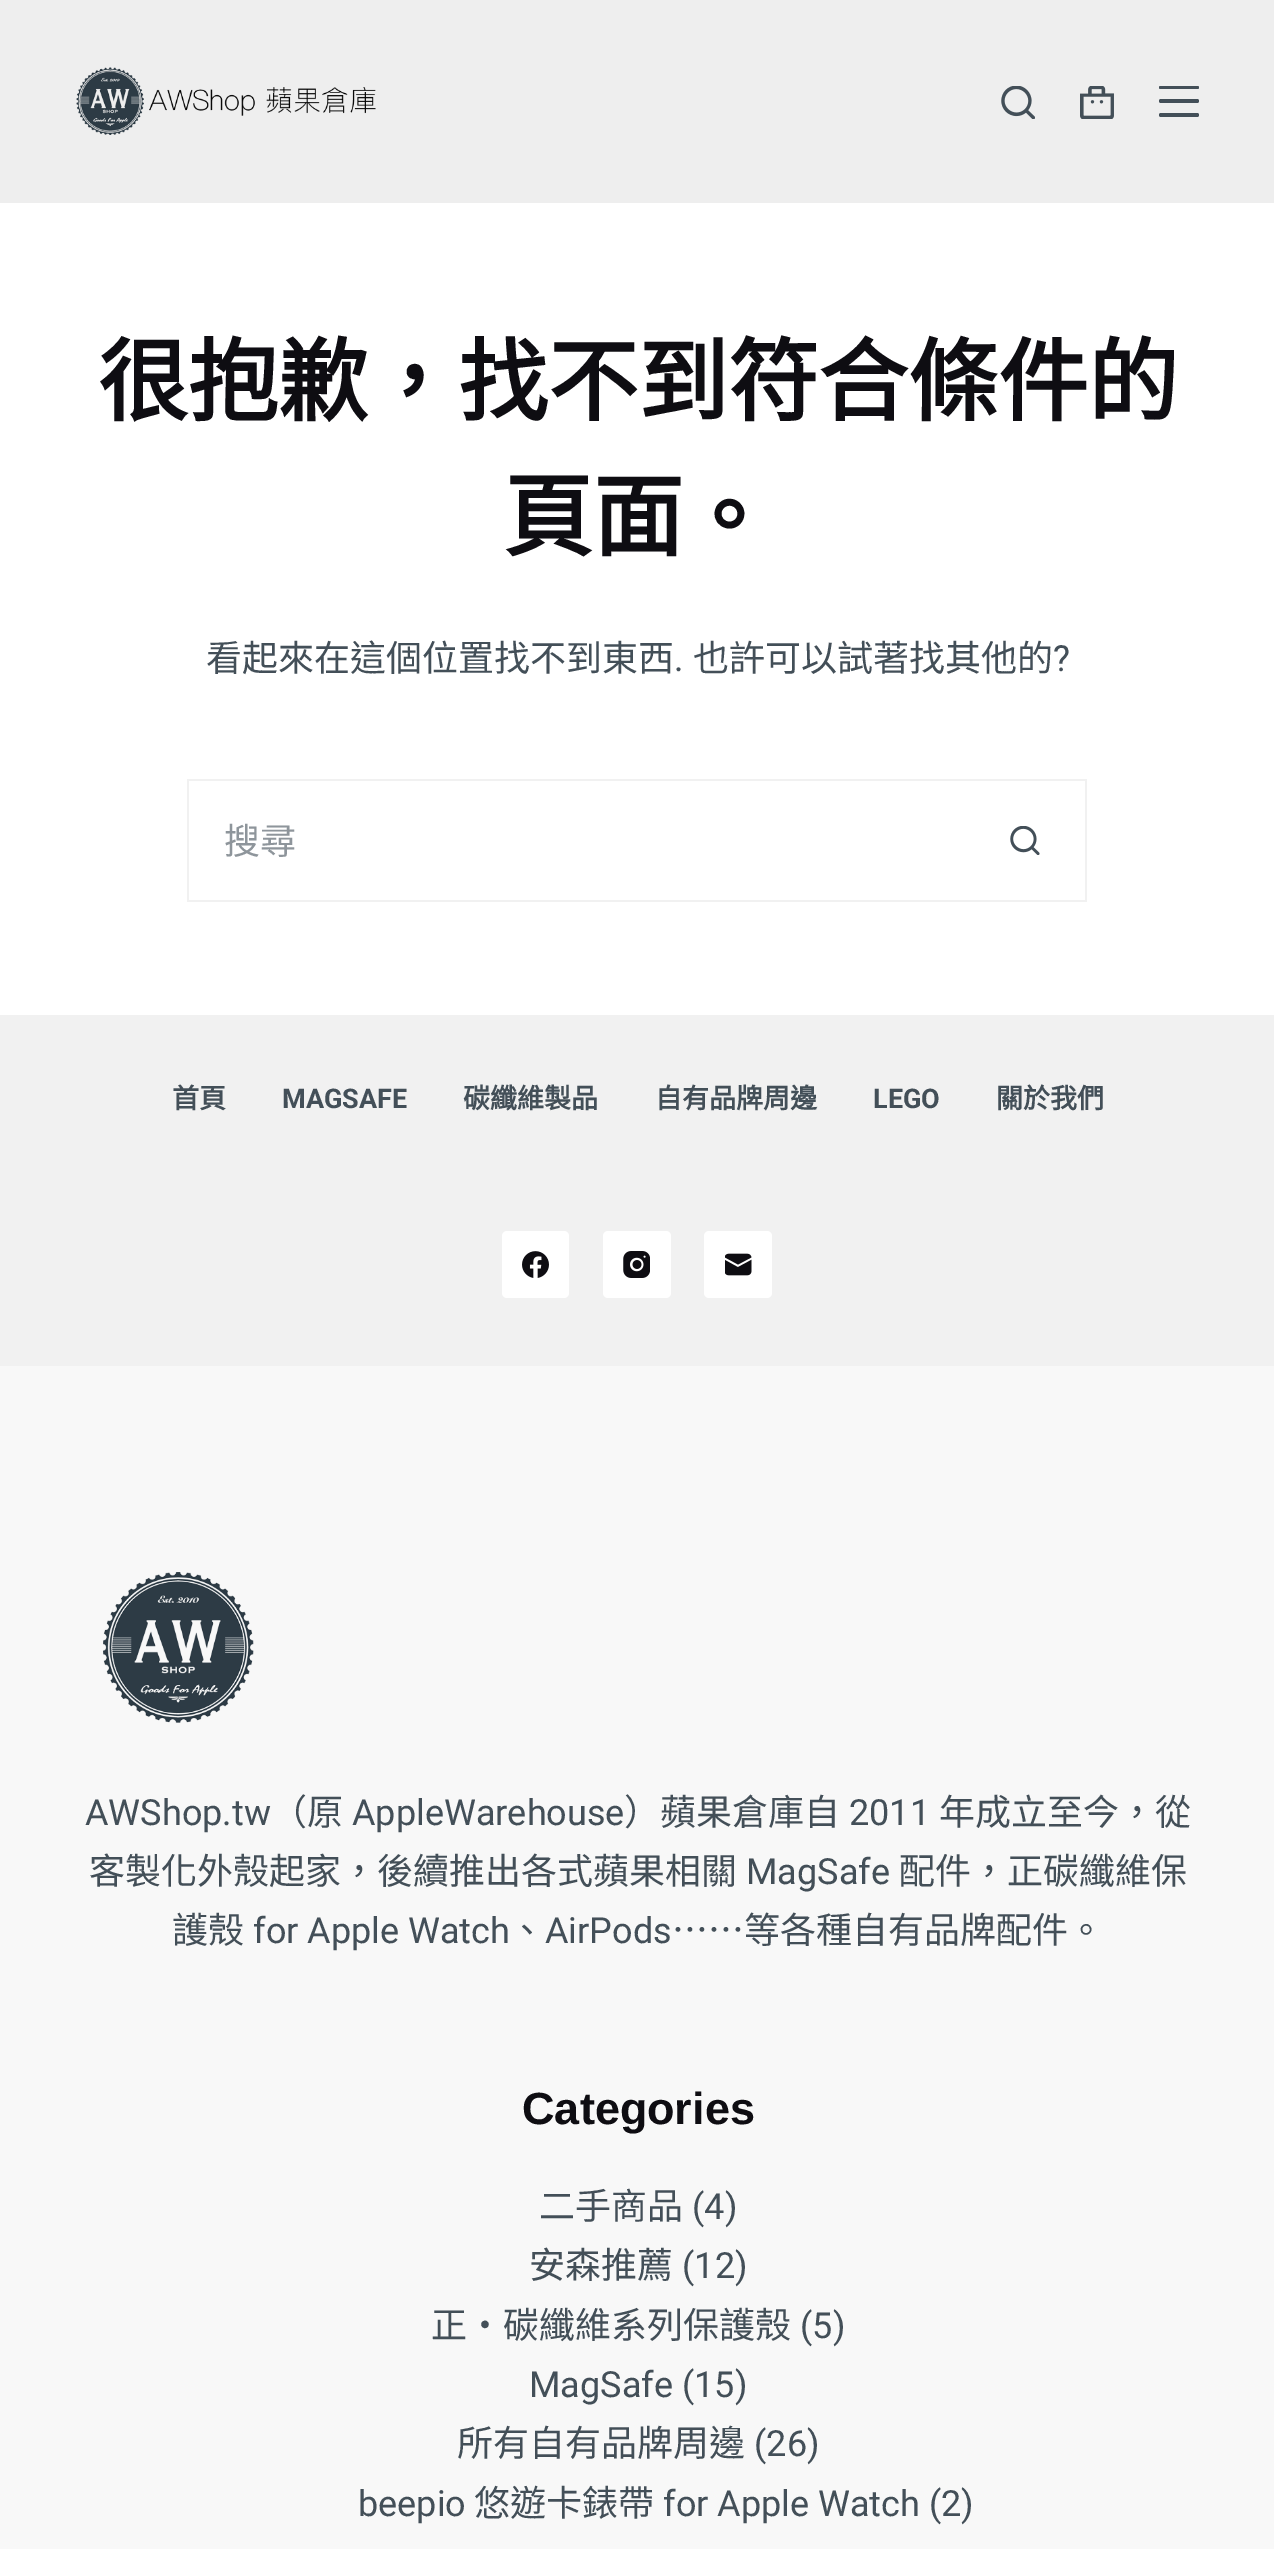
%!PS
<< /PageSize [1274 2549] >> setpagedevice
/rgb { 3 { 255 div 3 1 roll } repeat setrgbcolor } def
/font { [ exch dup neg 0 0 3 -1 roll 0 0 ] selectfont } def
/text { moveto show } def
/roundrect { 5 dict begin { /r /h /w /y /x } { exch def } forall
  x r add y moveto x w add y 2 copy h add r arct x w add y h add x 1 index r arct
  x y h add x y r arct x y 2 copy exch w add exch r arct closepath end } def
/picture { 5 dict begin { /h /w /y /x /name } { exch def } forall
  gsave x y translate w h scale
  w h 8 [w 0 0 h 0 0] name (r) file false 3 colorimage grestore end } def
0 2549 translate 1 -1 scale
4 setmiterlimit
255 255 255 rgb
0 0 1274 2549 rectfill
238 238 238 rgb
0 0 1274 203 rectfill
(img_01.rgb) 76 67 300 68 picture
(img_02.rgb) 1001 86 34 33 picture
(img_03.rgb) 1080 86 34 33 picture
67 79 88 rgb
1159 86 40 3 1.5 roundrect fill
1159 99 40 4 2 roundrect fill
1159 113 40 4 2 roundrect fill
241 241 241 rgb
187 779 900 2 rectfill
187 900 776 2 rectfill
187 779 2 123 rectfill
1085 779 2 123 rectfill
963 900 124 2 rectfill
(img_04.rgb) 1010 826 30 29 picture
248 248 248 rgb
0 1366 1274 1183 rectfill
241 241 241 rgb
0 1015 1274 351 rectfill
255 255 255 rgb
502 1231 67 67 5 roundrect fill
(img_05.rgb) 522 1251 27 27 picture
603 1231 68 67 5 roundrect fill
(img_06.rgb) 623 1251 27 27 picture
704 1231 68 67 5 roundrect fill
(img_07.rgb) 725 1253 27 23 picture
(img_08.rgb) 103 1572 151 151 picture
/NotoSansCJKTC-Bold 90 font
14 13 18 rgb
(很抱歉，找不到符合條件的) 98 414 text
(頁面。) 503 549 text
/NotoSansCJKTC-Regular 36 font
67 79 88 rgb
(看起來在這個位置找不到東西) 206 671 text
/Roboto-Regular 36 font
(.) 674 671 text
/NotoSansCJKTC-Regular 36 font
(也許可以試著找其他的) 693 671 text
/Roboto-Regular 36 font
(?) 1053 671 text
/NotoSansCJKTC-Regular 36 font
142 149 155 rgb
(搜尋) 224 854 text
/NotoSansCJKTC-Bold 27 font
67 79 88 rgb
(首頁) 172 1108 text
/Roboto-Bold 27 font
(MAGSAFE) 282 1108 text
/NotoSansCJKTC-Bold 27 font
(碳纖維製品) 463 1108 text
(自有品牌周邊) 655 1108 text
/Roboto-Bold 27 font
(LEGO) 873 1108 text
/NotoSansCJKTC-Bold 27 font
(關於我們) 996 1108 text
/Roboto-Regular 36 font
(AWShop.tw) 85 1825 text
/NotoSansCJKTC-Regular 36 font
(（原) 271 1825 text
/Roboto-Regular 36 font
(AppleWarehouse) 352 1825 text
/NotoSansCJKTC-Regular 36 font
(）蘋果倉庫自) 624 1825 text
/Roboto-Regular 36 font
(2011) 849 1825 text
/NotoSansCJKTC-Regular 36 font
(年成立至今，從) 939 1825 text
(客製化外殼起家，後續推出各式蘋果相關) 89 1884 text
/Roboto-Regular 36 font
(MagSafe) 746 1884 text
/NotoSansCJKTC-Regular 36 font
(配件，正碳纖維保) 899 1884 text
(護殼) 172 1943 text
/Roboto-Regular 36 font
(for Apple Watch) 253 1943 text
/NotoSansCJKTC-Regular 36 font
(、) 509 1943 text
/Roboto-Regular 36 font
(AirPods) 545 1943 text
/NotoSansCJKTC-Regular 36 font
(⋯⋯等各種自有品牌配件。) 672 1943 text
/LiberationSans-Bold 45 font
14 13 18 rgb
(Categories) 522 2124 text
/NotoSansCJKTC-Regular 36 font
67 79 88 rgb
(二手商品) 539 2219 text
/Roboto-Regular 36 font
(\(4\)) 692 2219 text
/NotoSansCJKTC-Regular 36 font
(安森推薦) 529 2278 text
/Roboto-Regular 36 font
(\(12\)) 682 2278 text
/NotoSansCJKTC-Regular 36 font
(正・碳纖維系列保護殼) 431 2338 text
/Roboto-Regular 36 font
(\(5\)) 800 2338 text
(MagSafe \(15\)) 529 2397 text
/NotoSansCJKTC-Regular 36 font
(所有自有品牌周邊) 457 2456 text
/Roboto-Regular 36 font
(\(26\)) 754 2456 text
(beepio) 358 2516 text
/NotoSansCJKTC-Regular 36 font
(悠遊卡錶帶) 474 2516 text
/Roboto-Regular 36 font
(for Apple Watch \(2\)) 663 2516 text
showpage
